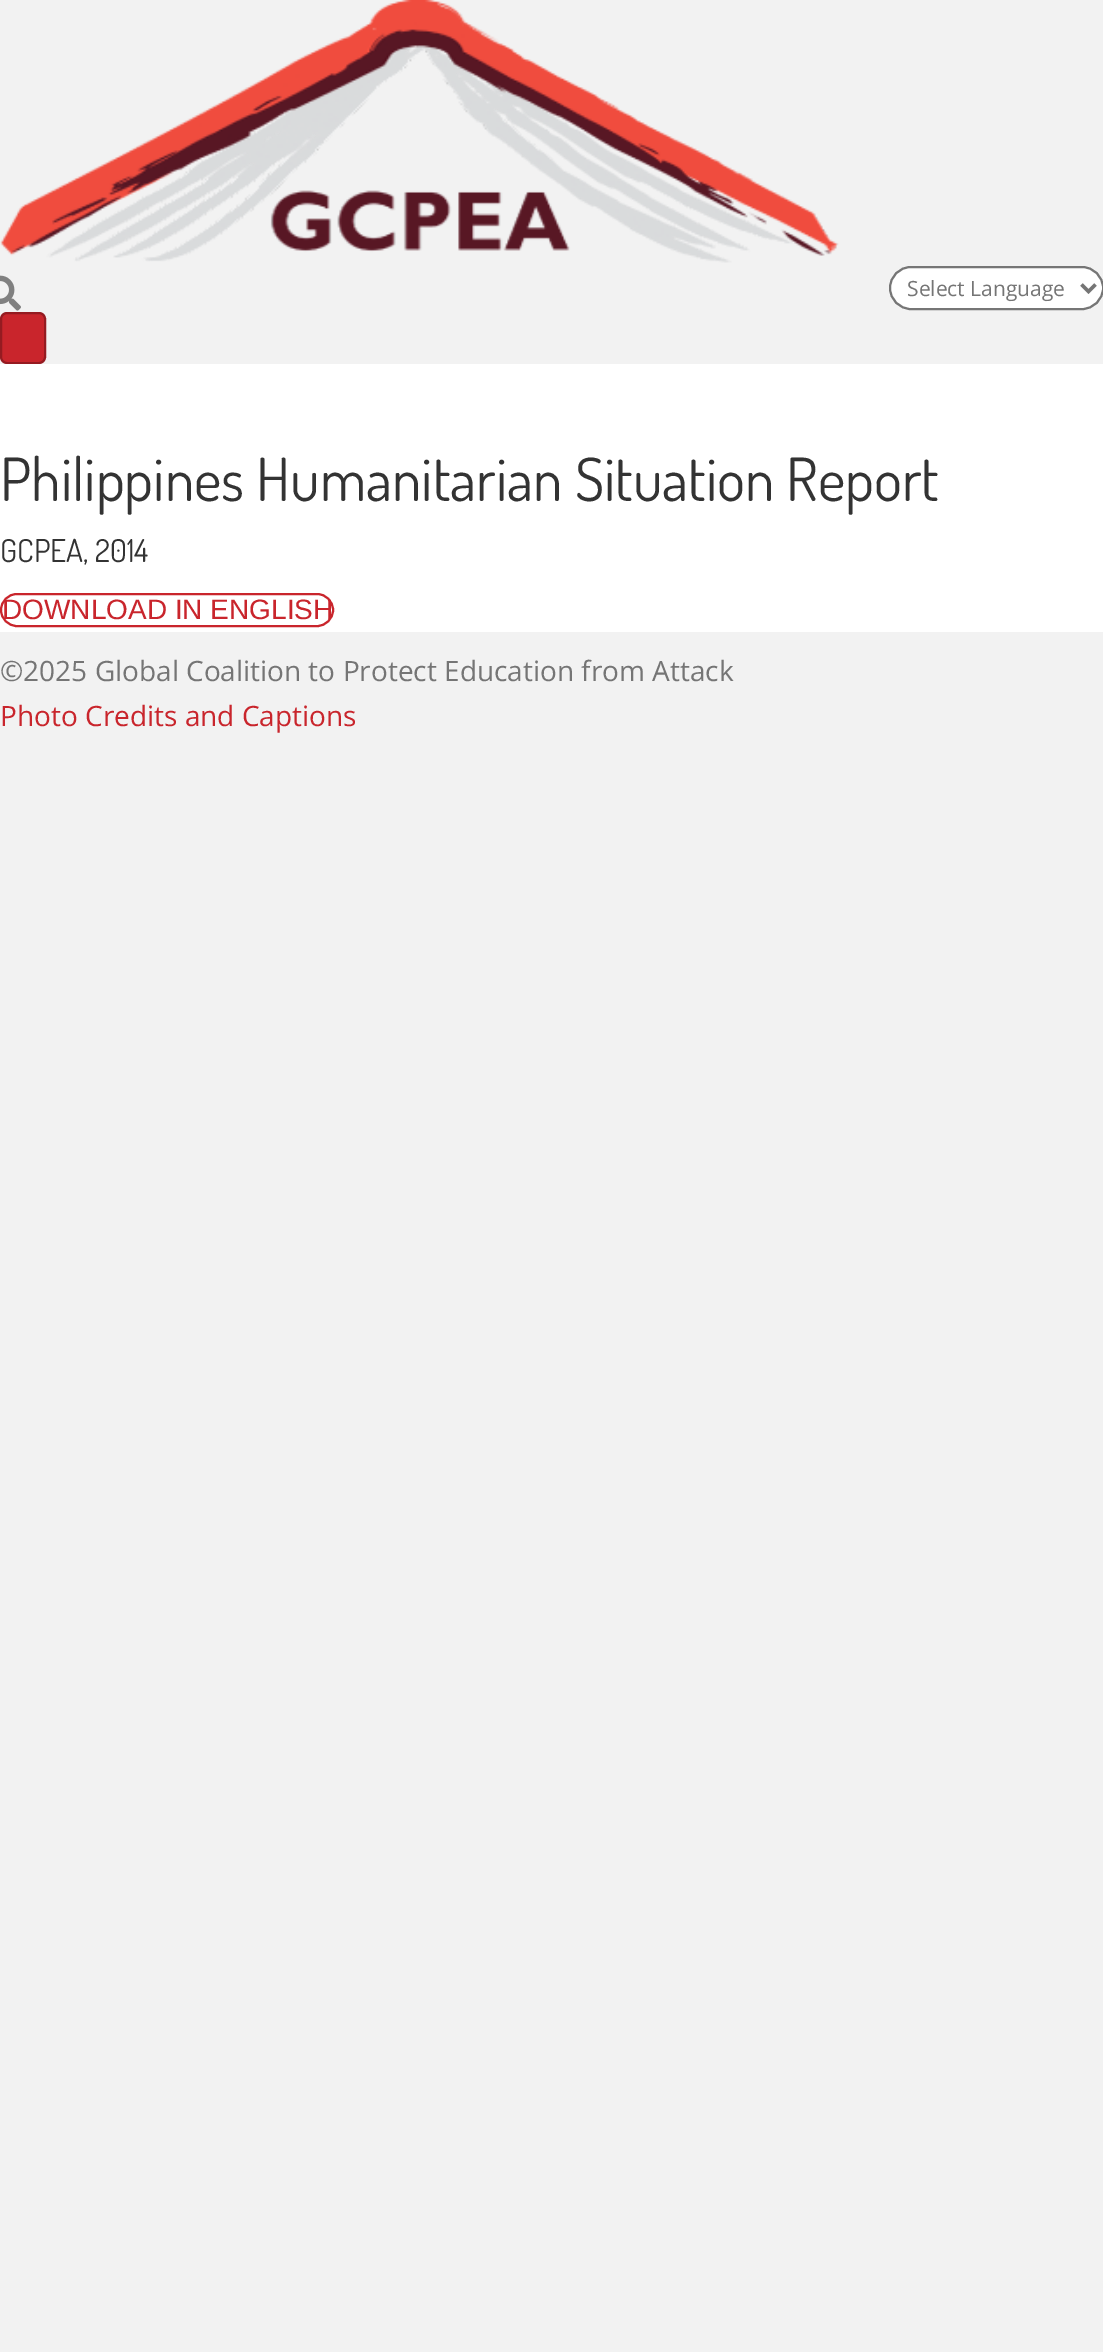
%!PS
<< /PageSize [1103 2352] >> setpagedevice
/rgb { 3 { 255 div 3 1 roll } repeat setrgbcolor } def
/font { [ exch dup neg 0 0 3 -1 roll 0 0 ] selectfont } def
/text { moveto show } def
/roundrect { 5 dict begin { /r /h /w /y /x } { exch def } forall
  x r add y moveto x w add y 2 copy h add r arct x w add y h add x 1 index r arct
  x y h add x y r arct x y 2 copy exch w add exch r arct closepath end } def
/picture { 5 dict begin { /h /w /y /x /name } { exch def } forall
  gsave x y translate w h scale
  w h 8 [w 0 0 h 0 0] name (r) file false 3 colorimage grestore end } def
0 2352 translate 1 -1 scale
4 setmiterlimit
242 242 242 rgb
0 0 1103 2352 rectfill
(img_01.rgb) 0 0 839 263 picture
(img_02.rgb) 0 275 21 36 picture
255 255 255 rgb
890 267 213 42 21 roundrect gsave fill grestore
118 118 118 rgb
2 setlinewidth
stroke
117 117 117 rgb
3.5 setlinewidth
1081.5 284.5 moveto 7 7 rlineto 7 -7 rlineto stroke
201 37 44 rgb
1 313 44 50 6 roundrect gsave fill grestore
149 27 33 rgb
2 setlinewidth
stroke
255 255 255 rgb
0 364 1103 268 rectfill
201 37 44 rgb
1 594 332 32 16 roundrect stroke
/OpenSans-Regular 21 font
117 117 117 rgb
(Select Language) 907 296 text
/Dosis-Regular 59.5 font
51 51 51 rgb
(Philippines Humanitarian Situation Report) 0 501 text
/Dosis-Regular 31.5 font
(GCPEA, 2014) 0 562 text
/LiberationSans-Regular 28 font
201 37 44 rgb
(DOWNLOAD IN ENGLISH) 2 619 text
/OpenSans-Regular 28 font
117 117 117 rgb
(©2025 Global Coalition to Protect Education from Attack) 0 681 text
201 37 44 rgb
(Photo Credits and Captions) 0 726 text
showpage
